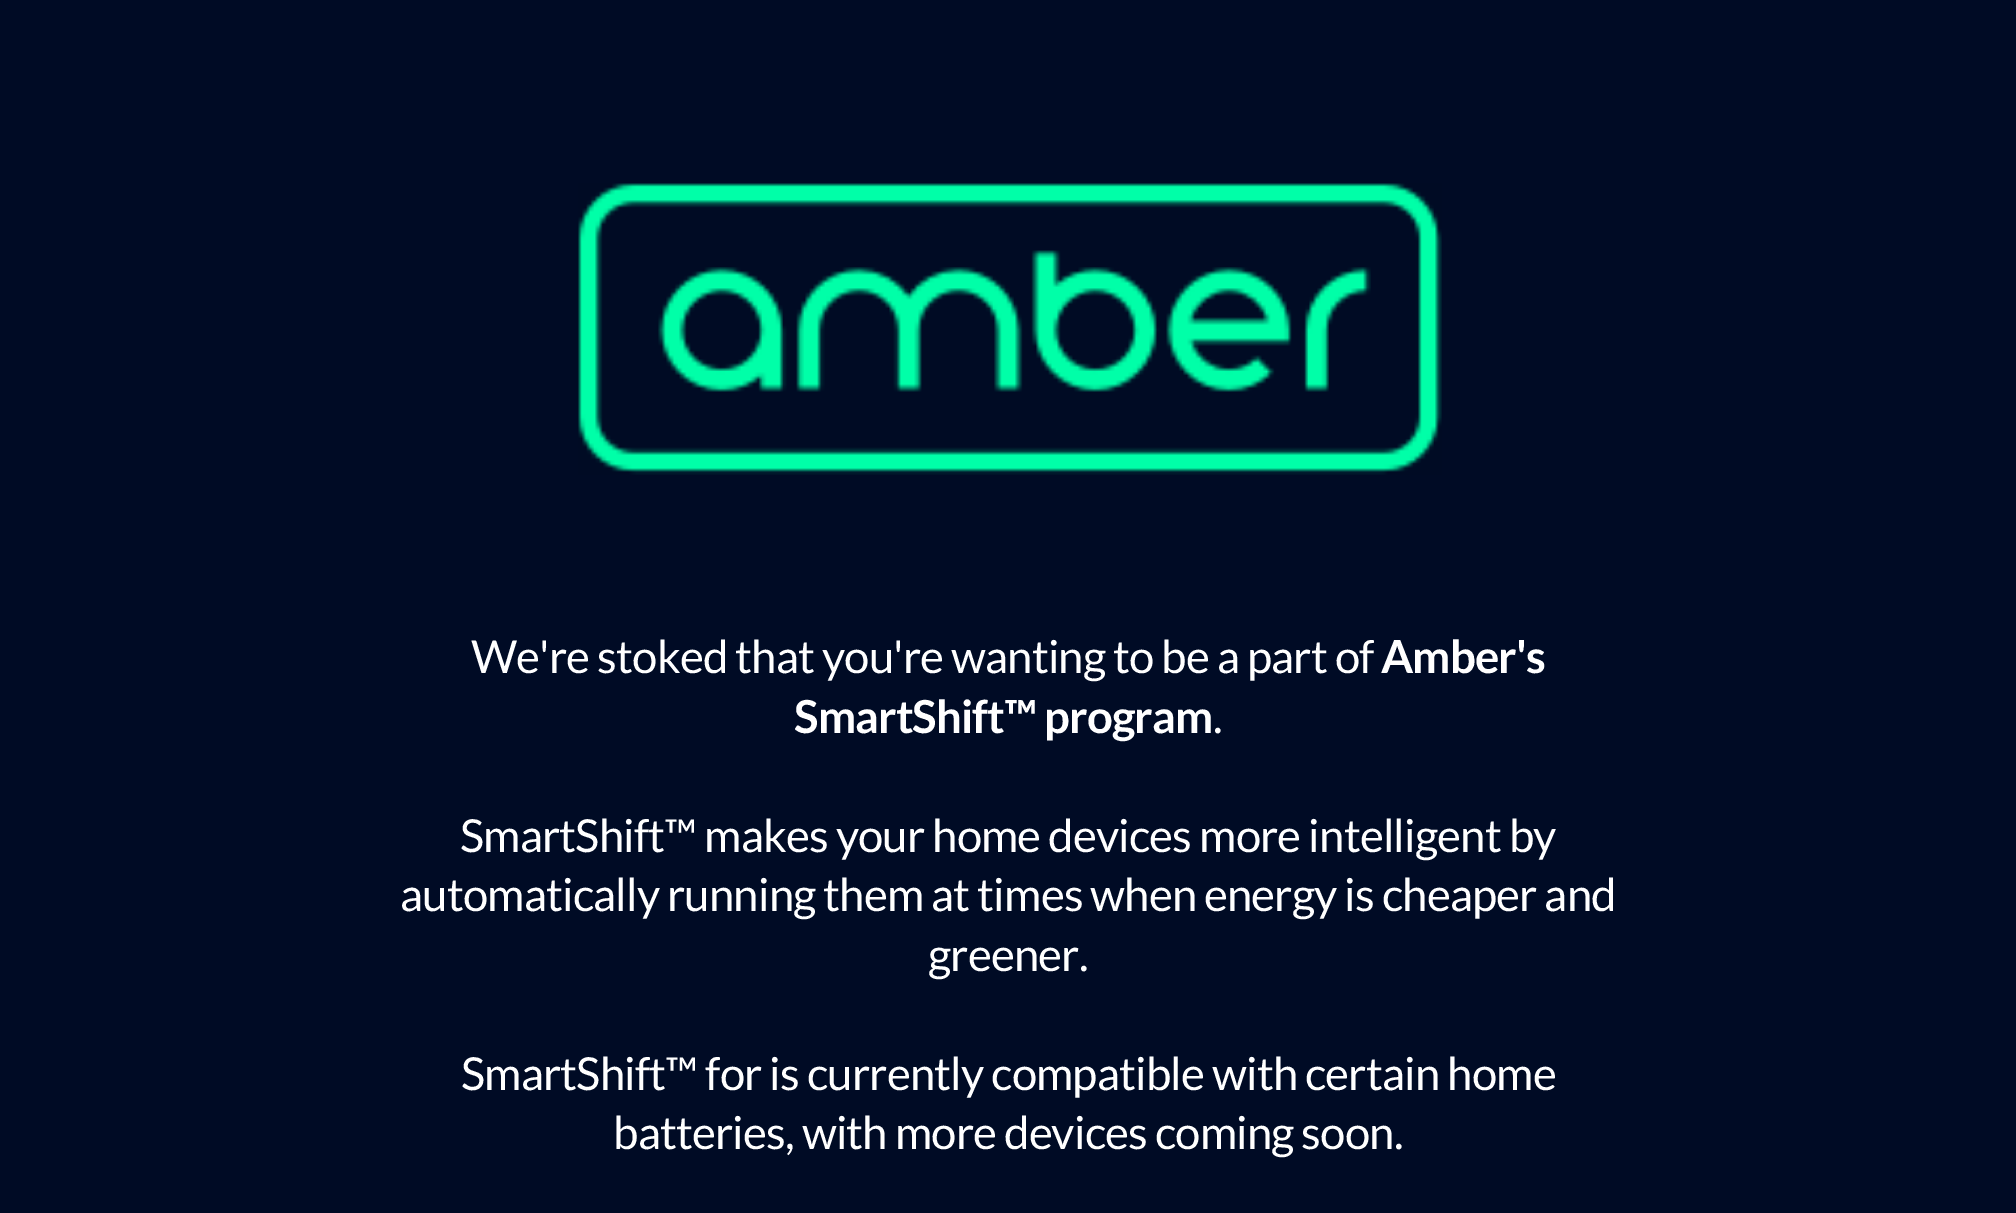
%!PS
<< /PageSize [2016 1213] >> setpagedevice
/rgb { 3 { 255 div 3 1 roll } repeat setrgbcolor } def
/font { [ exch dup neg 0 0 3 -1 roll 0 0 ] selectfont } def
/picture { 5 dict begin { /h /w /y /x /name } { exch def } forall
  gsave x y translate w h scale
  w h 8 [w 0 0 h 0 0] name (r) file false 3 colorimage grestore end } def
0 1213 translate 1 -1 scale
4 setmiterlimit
0 11 37 rgb
0 0 2016 1213 rectfill
(img_01.rgb) 578 183 864 292 picture
/Lato-Regular 45.5 font
255 255 255 rgb
471 673 moveto -0.88 0 (We're stoked that you're wanting to be a part of) ashow
/Lato-Bold 45.5 font
1381 673 moveto -0.88 0 (Amber's) ashow
794 733 moveto -0.88 0 (SmartShift™ program) ashow
/Lato-Regular 45.5 font
1213 733 moveto -0.88 0 (.) ashow
460 852 moveto -0.88 0 (SmartShift™ makes your home devices more intelligent by) ashow
400 911 moveto -0.88 0 (automatically running them at times when energy is cheaper and) ashow
928 971 moveto -0.88 0 (greener.) ashow
461 1090 moveto -0.88 0 (SmartShift™ for is currently compatible with certain home) ashow
613 1149 moveto -0.88 0 (batteries, with more devices coming soon.) ashow
showpage
